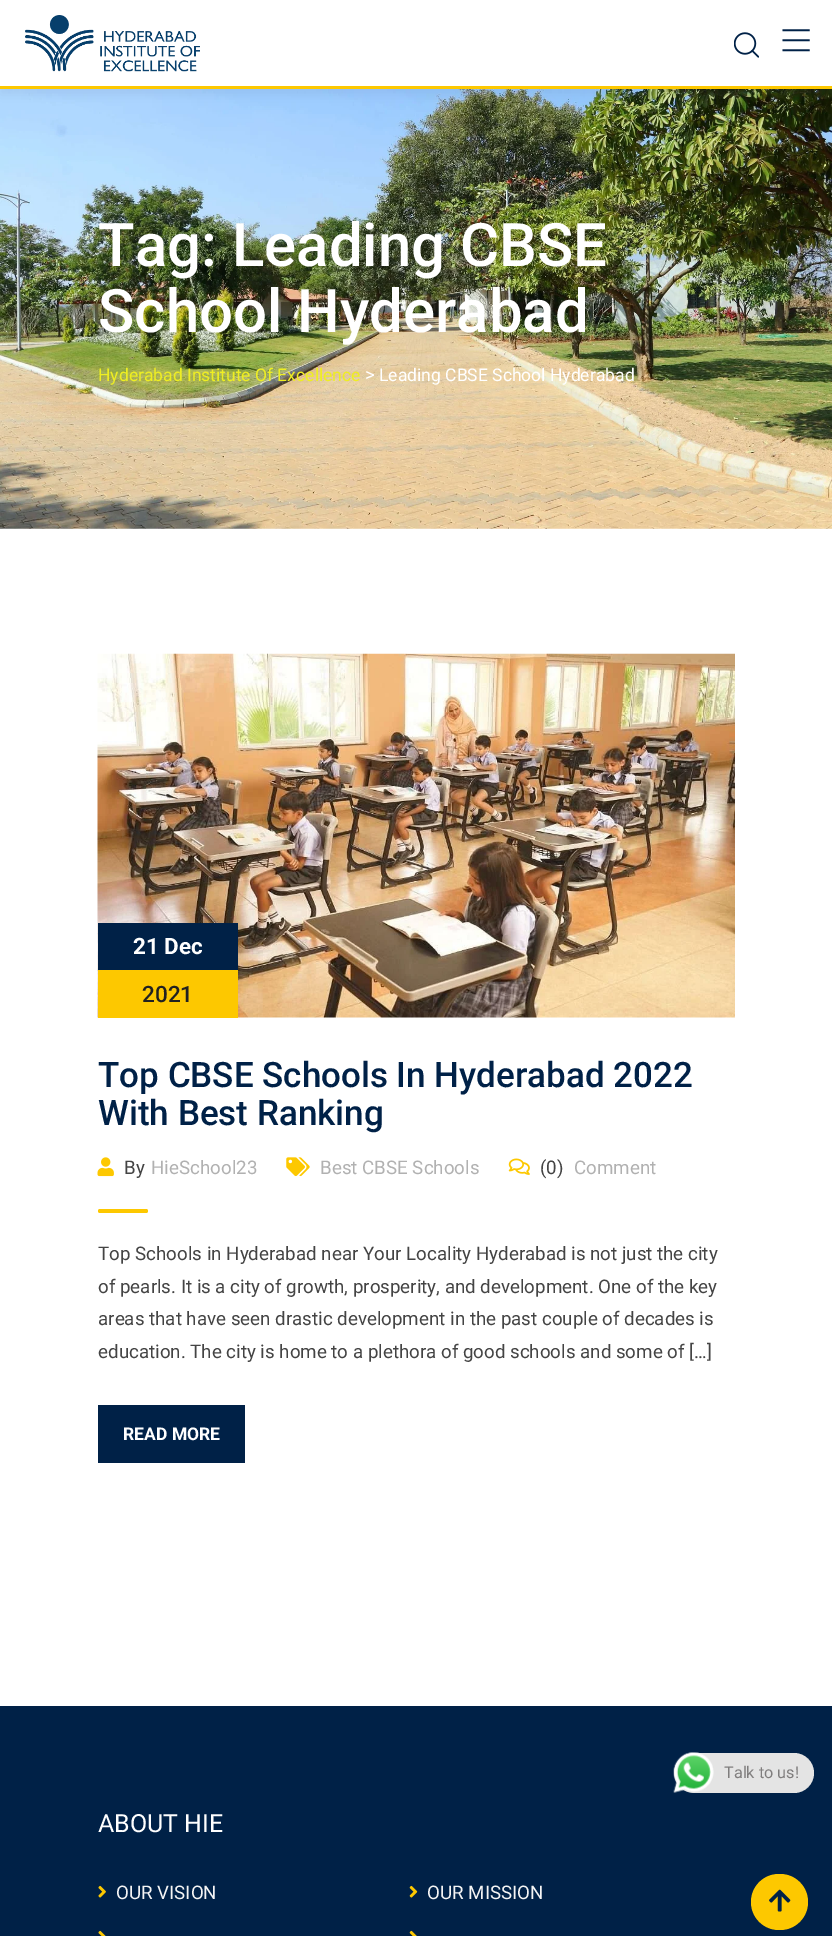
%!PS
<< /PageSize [832 1936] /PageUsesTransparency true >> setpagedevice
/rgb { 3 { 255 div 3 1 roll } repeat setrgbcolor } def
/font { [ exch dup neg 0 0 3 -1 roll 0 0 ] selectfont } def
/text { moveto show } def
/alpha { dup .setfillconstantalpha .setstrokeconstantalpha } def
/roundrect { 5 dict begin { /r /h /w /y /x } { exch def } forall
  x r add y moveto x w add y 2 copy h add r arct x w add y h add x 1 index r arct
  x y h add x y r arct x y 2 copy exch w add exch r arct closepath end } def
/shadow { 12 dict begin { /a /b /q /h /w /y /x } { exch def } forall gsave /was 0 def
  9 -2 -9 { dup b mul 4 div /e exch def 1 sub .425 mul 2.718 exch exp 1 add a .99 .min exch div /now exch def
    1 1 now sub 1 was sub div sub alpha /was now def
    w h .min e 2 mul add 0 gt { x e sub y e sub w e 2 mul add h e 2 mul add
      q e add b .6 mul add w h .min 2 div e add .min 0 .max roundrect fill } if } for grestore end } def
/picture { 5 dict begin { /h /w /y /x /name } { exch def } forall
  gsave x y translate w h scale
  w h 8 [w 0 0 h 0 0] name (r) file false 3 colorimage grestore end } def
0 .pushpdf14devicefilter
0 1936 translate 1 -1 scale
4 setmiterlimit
255 255 255 rgb
0 0 832 1936 rectfill
(img_03.rgb) 0 89 832 440 picture
87 101 128 rgb
0 6 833 89 0 6 0.12 shadow
255 255 255 rgb
0 0 832 86 rectfill
253 200 0 rgb
0 86 832 3 rectfill
(img_01.rgb) 25 15 175 57 picture
(img_02.rgb) 734 32 25 26 picture
(img_04.rgb) 97 653 638 365 picture
0 33 71 rgb
98 923 140 47 rectfill
253 200 0 rgb
98 970 140 48 rectfill
(img_05.rgb) 97 1157 17 20 picture
(img_06.rgb) 286 1157 24 20 picture
(img_07.rgb) 508 1158 22 17 picture
98 1209 50 4 2 roundrect fill
0 33 71 rgb
98 1405 147 58 rectfill
0 1706 832 230 rectfill
(img_08.rgb) 98 1885 8 13 picture
(img_09.rgb) 409 1885 9 13 picture
(img_10.rgb) 98 1930 8 6 picture
(img_11.rgb) 409 1930 8 6 picture
228 228 228 rgb
674 1753 140 40 20 roundrect fill
(img_12.rgb) 673 1752 41 41 picture
253 200 0 rgb
751 1874 57 56 28 roundrect fill
(img_13.rgb) 769 1889 22 23 picture
/LiberationSerif-Bold 30 font
0 33 71 rgb
gsave 789 27 translate 90 rotate 0 0 moveto -2 0 (| | |) ashow grestore
/Roboto-Medium 60 font
255 255 255 rgb
(Tag: Leading CBSE) 98 266 text
(School Hyderabad) 98 332 text
/Roboto-Regular 17.5 font
238 238 34 rgb
(Hyderabad Institute Of Excellence) 98 381 text
/Roboto-Regular 18.75 font
255 255 255 rgb
(>) 365 381 text
/Roboto-Regular 17.5 font
(Leading CBSE School Hyderabad) 379 381 text
/Roboto-Bold 22.5 font
(21 Dec) 133 954 text
/Roboto-Medium 22.5 font
33 33 33 rgb
(2021) 142 1002 text
/Roboto-Medium 35 font
0 33 71 rgb
(Top CBSE Schools In Hyderabad 2022) 98 1087 text
(With Best Ranking) 98 1125 text
/Roboto-Regular 18.75 font
68 68 68 rgb
(By) 124 1174 text
177 177 177 rgb
(HieSchool23) 151 1174 text
(Best CBSE Schools) 320 1174 text
68 68 68 rgb
(\(0\)) 540 1174 text
177 177 177 rgb
(Comment) 574 1174 text
68 68 68 rgb
(Top Schools in Hyderabad near Your Locality Hyderabad is not just the city) 98 1260 text
(of pearls. It is a city of growth, prosperity, and development. One of the key) 98 1293 text
(areas that have seen drastic development in the past couple of decades is) 98 1325 text
(education. The city is home to a plethora of good schools and some of […]) 98 1358 text
/Roboto-Bold 17.5 font
255 255 255 rgb
(READ MORE) 123 1440 text
/Roboto-Regular 25 font
(ABOUT HIE) 98 1832 text
/Roboto-Regular 18.75 font
245 245 245 rgb
(OUR VISION) 116 1899 text
(OUR MISSION) 427 1899 text
/Roboto-Regular 16.25 font
127 125 125 rgb
(Talk to us!) 724 1778 text
.poppdf14devicefilter showpage
